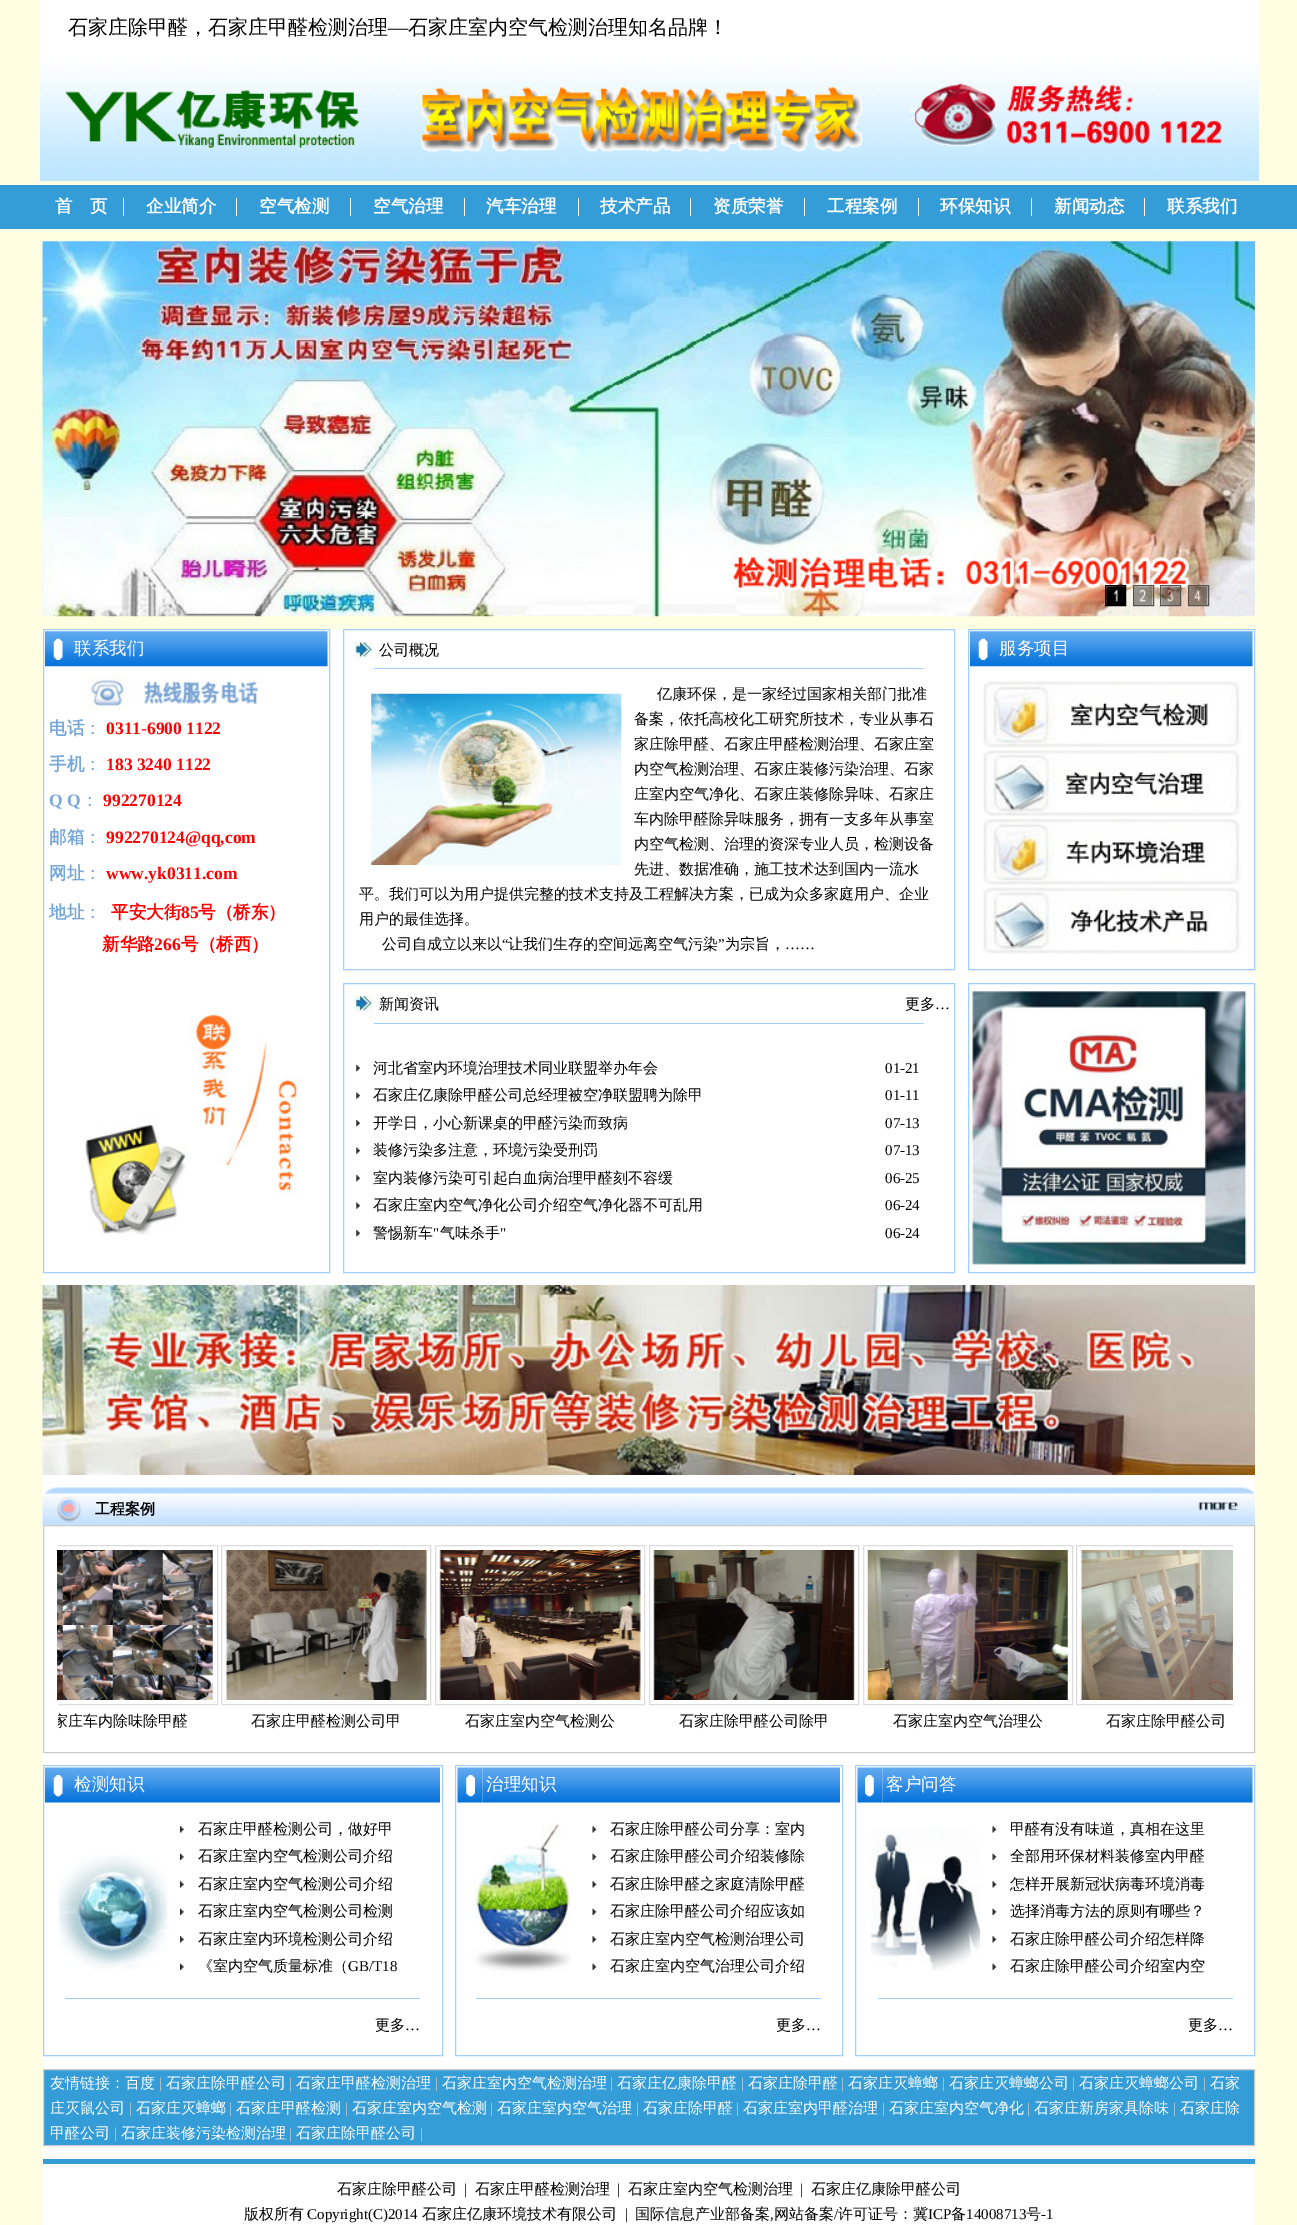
%!PS
<< /PageSize [1297 2225] >> setpagedevice
/rgb { 3 { 255 div 3 1 roll } repeat setrgbcolor } def
/font { [ exch dup neg 0 0 3 -1 roll 0 0 ] selectfont } def
/text { moveto show } def
/picture { 5 dict begin { /h /w /y /x /name } { exch def } forall
  gsave x y translate w h scale
  w h 8 [w 0 0 h 0 0] name (r) file false 3 colorimage grestore end } def
0 2225 translate 1 -1 scale
4 setmiterlimit
255 255 255 rgb
0 0 1297 2225 rectfill
(img_01.rgb) 0 0 1297 2225 picture
(img_02.rgb) 40 0 1219 181 picture
(img_03.rgb) 40 44 1219 137 picture
(img_04.rgb) 65 83 1157 69 picture
254 254 226 rgb
39 181 1220 4 rectfill
52 157 215 rgb
0 185 1297 44 rectfill
255 255 255 rgb
123 198 1 18 rectfill
236 198 1 18 rectfill
350 198 1 18 rectfill
464 198 1 18 rectfill
578 198 1 18 rectfill
690 198 1 18 rectfill
804 198 1 18 rectfill
918 198 1 18 rectfill
1031 198 1 18 rectfill
1144 198 1 18 rectfill
254 254 226 rgb
39 229 1220 12 rectfill
39 616 1220 13 rectfill
(img_05.rgb) 42 241 1213 376 picture
0 0 0 rgb
1105.5 585.5 20 20 rectstroke
(img_06.rgb) 1106 586 19 19 picture
85 85 85 rgb
1133.5 585.5 20 20 rectstroke
(img_07.rgb) 1133 586 20 19 picture
1160.5 585.5 20 20 rectstroke
(img_08.rgb) 1161 586 19 19 picture
1188.5 585.5 20 20 rectstroke
(img_09.rgb) 1188 586 20 19 picture
160 207 255 rgb
43.5 629.5 286 643 rectstroke
(img_10.rgb) 45 631 25 36 picture
(img_11.rgb) 53 638 10 22 picture
(img_12.rgb) 70 631 258 36 picture
(img_13.rgb) 88 674 170 37 picture
(img_14.rgb) 85 1008 214 228 picture
343.5 629.5 611 340 rectstroke
(img_15.rgb) 353 641 20 19 picture
374 668 550 1 rectfill
(img_16.rgb) 371 693 251 172 picture
343.5 983.5 611 289 rectstroke
(img_17.rgb) 353 995 20 19 picture
374 1023 550 1 rectfill
(img_18.rgb) 356 1065 4 7 picture
(img_19.rgb) 356 1092 4 7 picture
(img_18.rgb) 356 1120 4 7 picture
(img_19.rgb) 356 1147 4 7 picture
(img_18.rgb) 356 1175 4 7 picture
(img_19.rgb) 356 1202 4 7 picture
(img_18.rgb) 356 1230 4 7 picture
968.5 629.5 286 340 rectstroke
(img_20.rgb) 970 631 25 36 picture
(img_11.rgb) 978 638 10 22 picture
(img_21.rgb) 995 631 258 36 picture
(img_22.rgb) 983 681 259 67 picture
(img_23.rgb) 983 750 259 67 picture
(img_24.rgb) 983 818 259 67 picture
(img_25.rgb) 983 887 259 67 picture
968.5 983.5 286 289 rectstroke
(img_26.rgb) 971 990 276 275 picture
(img_27.rgb) 42 1285 1213 190 picture
(img_28.rgb) 42 1487 53 38 picture
(img_29.rgb) 95 1487 1160 38 picture
(img_30.rgb) 1198 1501 40 10 picture
204 204 204 rgb
43.5 1525.5 1211 227 rectstroke
gsave
58 1545 1175 188 rectclip
221 221 221 rgb
8.5 1545.5 209 159 rectstroke
grestore
(img_31.rgb) 57 1550 156 150 picture
221 221 221 rgb
221.5 1545.5 209 159 rectstroke
(img_32.rgb) 225 1550 202 150 picture
435.5 1545.5 209 159 rectstroke
(img_33.rgb) 439 1550 202 150 picture
649.5 1545.5 209 159 rectstroke
(img_34.rgb) 653 1550 202 150 picture
863.5 1545.5 209 159 rectstroke
(img_35.rgb) 867 1550 201 150 picture
gsave
58 1545 1175 188 rectclip
1076.5 1545.5 209 159 rectstroke
grestore
(img_36.rgb) 1080 1550 153 150 picture
160 207 255 rgb
43.5 1765.5 399 290 rectstroke
(img_37.rgb) 45 1767 25 36 picture
(img_38.rgb) 53 1775 10 22 picture
(img_39.rgb) 70 1767 370 36 picture
(img_40.rgb) 58 1855 110 116 picture
(img_41.rgb) 180 1826 4 7 picture
(img_42.rgb) 180 1853 4 7 picture
(img_41.rgb) 180 1881 4 7 picture
(img_42.rgb) 180 1908 4 7 picture
(img_41.rgb) 180 1936 4 7 picture
(img_42.rgb) 180 1963 4 7 picture
65 1998 355 1 rectfill
455.5 1765.5 387 290 rectstroke
(img_43.rgb) 457 1767 26 36 picture
(img_44.rgb) 466 1775 9 22 picture
(img_45.rgb) 482 1767 358 36 picture
(img_46.rgb) 471 1823 100 149 picture
(img_47.rgb) 592 1826 5 7 picture
(img_48.rgb) 592 1853 5 7 picture
(img_47.rgb) 592 1881 5 7 picture
(img_48.rgb) 592 1908 5 7 picture
(img_47.rgb) 592 1936 5 7 picture
(img_48.rgb) 592 1963 5 7 picture
476 1998 345 1 rectfill
855.5 1765.5 399 290 rectstroke
(img_49.rgb) 857 1767 26 36 picture
(img_50.rgb) 865 1775 9 22 picture
(img_51.rgb) 882 1767 371 36 picture
(img_52.rgb) 871 1828 109 143 picture
(img_47.rgb) 992 1826 5 7 picture
(img_48.rgb) 992 1853 5 7 picture
(img_47.rgb) 992 1881 5 7 picture
(img_48.rgb) 992 1908 5 7 picture
(img_47.rgb) 992 1936 5 7 picture
(img_48.rgb) 992 1963 5 7 picture
878 1998 355 1 rectfill
52 157 215 rgb
43.5 2069.5 moveto 1211 0 rlineto 0 76 rlineto -1211 0 rlineto closepath gsave fill grestore
204 204 204 rgb
stroke
52 157 215 rgb
43 2159 1212 5 rectfill
/WenQuanYiZenHei-Medium 20 font
0 0 0 rgb
(石家庄除甲醛，石家庄甲醛检测治理) 68 34 text
/LiberationSerif-Regular 20 font
(—) 388 34 text
/WenQuanYiZenHei-Medium 20 font
(石家庄室内空气检测治理知名品牌！) 408 34 text
/WenQuanYiZenHei-Bold 17.5 font
255 255 255 rgb
(首) 55 212 text
(页) 90 212 text
(企业简介) 146 212 text
(空气检测) 259 212 text
(空气治理) 373 212 text
(汽车治理) 486 212 text
(技术产品) 600 212 text
(资质荣誉) 713 212 text
(工程案例) 827 212 text
(环保知识) 940 212 text
(新闻动态) 1054 212 text
(联系我们) 1167 212 text
/WenQuanYiZenHei-Medium 17.5 font
(联系我们) 74 654 text
/WenQuanYiZenHei-Bold 17.5 font
118 168 217 rgb
(电话) 49 734 text
/WenQuanYiZenHei-Medium 17.5 font
(：) 84 734 text
/LiberationSerif-Bold 17.5 font
255 0 0 rgb
(0311-6900 1122) 106 734 text
/WenQuanYiZenHei-Bold 17.5 font
118 168 217 rgb
(手机) 49 770 text
/WenQuanYiZenHei-Medium 17.5 font
(：) 84 770 text
/LiberationSerif-Bold 17.5 font
255 0 0 rgb
(183 3240 1122) 106 770 text
118 168 217 rgb
(Q Q) 49 806 text
/WenQuanYiZenHei-Medium 17.5 font
(：) 81 806 text
/LiberationSerif-Bold 17.5 font
255 0 0 rgb
(992270124) 103 806 text
/WenQuanYiZenHei-Bold 17.5 font
118 168 217 rgb
(邮箱) 49 843 text
/WenQuanYiZenHei-Medium 17.5 font
(：) 84 843 text
/LiberationSerif-Bold 17.5 font
255 0 0 rgb
(992270124@qq,com) 106 843 text
/WenQuanYiZenHei-Bold 17.5 font
118 168 217 rgb
(网址) 49 879 text
/WenQuanYiZenHei-Medium 17.5 font
(：) 84 879 text
/LiberationSerif-Bold 17.5 font
255 0 0 rgb
(www.yk0311.com) 106 879 text
/WenQuanYiZenHei-Bold 17.5 font
118 168 217 rgb
(地址) 49 918 text
/WenQuanYiZenHei-Medium 17.5 font
(：) 84 918 text
/WenQuanYiZenHei-Bold 17.5 font
255 0 0 rgb
(平安大街) 111 918 text
/LiberationSerif-Bold 17.5 font
(85) 181 918 text
/WenQuanYiZenHei-Bold 17.5 font
(号（桥东）) 198 918 text
(新华路) 102 950 text
/LiberationSerif-Bold 17.5 font
(266) 154 950 text
/WenQuanYiZenHei-Bold 17.5 font
(号（桥西）) 181 950 text
/WenQuanYiZenHei-Medium 15 font
0 0 0 rgb
(公司概况) 379 655 text
(亿康环保，是一家经过国家相关部门批准) 657 699 text
(备案，依托高校化工研究所技术，专业从事石) 634 724 text
(家庄除甲醛、石家庄甲醛检测治理、石家庄室) 634 749 text
(内空气检测治理、石家庄装修污染治理、石家) 634 774 text
(庄室内空气净化、石家庄装修除异味、石家庄) 634 799 text
(车内除甲醛除异味服务，拥有一支多年从事室) 634 824 text
(内空气检测、治理的资深专业人员，检测设备) 634 849 text
(先进、数据准确，施工技术达到国内一流水) 634 874 text
(平。我们可以为用户提供完整的技术支持及工程解决方案，已成为众多家庭用户、企业) 359 899 text
(用户的最佳选择。) 359 924 text
(公司自成立以来以) 382 949 text
/LiberationSerif-Regular 15 font
(“) 502 949 text
/WenQuanYiZenHei-Medium 15 font
(让我们生存的空间远离空气污染) 508 949 text
/LiberationSerif-Regular 15 font
(”) 718 949 text
/WenQuanYiZenHei-Medium 15 font
(为宗旨，) 725 949 text
/LiberationSerif-Regular 15 font
(……) 785 949 text
/WenQuanYiZenHei-Medium 15 font
(新闻资讯) 379 1009 text
(更多) 905 1009 text
/LiberationSerif-Regular 15 font
(…) 935 1009 text
/WenQuanYiZenHei-Medium 15 font
(河北省室内环境治理技术同业联盟举办年会) 373 1073 text
/LiberationSerif-Regular 15 font
(01-21) 885 1073 text
/WenQuanYiZenHei-Medium 15 font
(石家庄亿康除甲醛公司总经理被空净联盟聘为除甲) 373 1100 text
/LiberationSerif-Regular 15 font
(01-11) 885 1100 text
/WenQuanYiZenHei-Medium 15 font
(开学日，小心新课桌的甲醛污染而致病) 373 1128 text
/LiberationSerif-Regular 15 font
(07-13) 885 1128 text
/WenQuanYiZenHei-Medium 15 font
(装修污染多注意，环境污染受刑罚) 373 1155 text
/LiberationSerif-Regular 15 font
(07-13) 885 1155 text
/WenQuanYiZenHei-Medium 15 font
(室内装修污染可引起白血病治理甲醛刻不容缓) 373 1183 text
/LiberationSerif-Regular 15 font
(06-25) 885 1183 text
/WenQuanYiZenHei-Medium 15 font
(石家庄室内空气净化公司介绍空气净化器不可乱用) 373 1210 text
/LiberationSerif-Regular 15 font
(06-24) 885 1210 text
/WenQuanYiZenHei-Medium 15 font
(警惕新车) 373 1238 text
/LiberationSerif-Regular 15 font
(") 433 1238 text
/WenQuanYiZenHei-Medium 15 font
(气味杀手) 440 1238 text
/LiberationSerif-Regular 15 font
(") 500 1238 text
(06-24) 885 1238 text
/WenQuanYiZenHei-Medium 17.5 font
255 255 255 rgb
(服务项目) 999 654 text
/WenQuanYiZenHei-Bold 15 font
0 0 0 rgb
(工程案例) 95 1514 text
gsave
58 1545 1175 188 rectclip
/WenQuanYiZenHei-Medium 15 font
(家庄车内除味除甲醛) 53 1726 text
grestore
/WenQuanYiZenHei-Medium 15 font
(石家庄甲醛检测公司甲) 251 1726 text
(石家庄室内空气检测公) 465 1726 text
(石家庄除甲醛公司除甲) 679 1726 text
(石家庄室内空气治理公) 893 1726 text
(石家庄除甲醛公司) 1106 1726 text
/WenQuanYiZenHei-Medium 17.5 font
255 255 255 rgb
(检测知识) 74 1790 text
/WenQuanYiZenHei-Medium 15 font
0 0 0 rgb
(石家庄甲醛检测公司，做好甲) 198 1834 text
(石家庄室内空气检测公司介绍) 198 1861 text
(石家庄室内空气检测公司介绍) 198 1889 text
(石家庄室内空气检测公司检测) 198 1916 text
(石家庄室内环境检测公司介绍) 198 1944 text
(《室内空气质量标准（) 198 1971 text
/LiberationSerif-Regular 15 font
(GB/T18) 348 1971 text
/WenQuanYiZenHei-Medium 15 font
(更多) 375 2030 text
/LiberationSerif-Regular 15 font
(…) 405 2030 text
/WenQuanYiZenHei-Medium 17.5 font
255 255 255 rgb
(治理知识) 486 1790 text
/WenQuanYiZenHei-Medium 15 font
0 0 0 rgb
(石家庄除甲醛公司分享：室内) 610 1834 text
(石家庄除甲醛公司介绍装修除) 610 1861 text
(石家庄除甲醛之家庭清除甲醛) 610 1889 text
(石家庄除甲醛公司介绍应该如) 610 1916 text
(石家庄室内空气检测治理公司) 610 1944 text
(石家庄室内空气治理公司介绍) 610 1971 text
(更多) 776 2030 text
/LiberationSerif-Regular 15 font
(…) 806 2030 text
/WenQuanYiZenHei-Medium 17.5 font
255 255 255 rgb
(客户问答) 886 1790 text
/WenQuanYiZenHei-Medium 15 font
0 0 0 rgb
(甲醛有没有味道，真相在这里) 1010 1834 text
(全部用环保材料装修室内甲醛) 1010 1861 text
(怎样开展新冠状病毒环境消毒) 1010 1889 text
(选择消毒方法的原则有哪些？) 1010 1916 text
(石家庄除甲醛公司介绍怎样降) 1010 1944 text
(石家庄除甲醛公司介绍室内空) 1010 1971 text
(更多) 1188 2030 text
/LiberationSerif-Regular 15 font
(…) 1218 2030 text
/WenQuanYiZenHei-Medium 15 font
255 255 255 rgb
(友情链接：百度) 50 2088 text
/LiberationSerif-Regular 15 font
204 204 204 rgb
(|) 159 2088 text
/WenQuanYiZenHei-Medium 15 font
255 255 255 rgb
(石家庄除甲醛公司) 166 2088 text
/LiberationSerif-Regular 15 font
204 204 204 rgb
(|) 289 2088 text
/WenQuanYiZenHei-Medium 15 font
255 255 255 rgb
(石家庄甲醛检测治理) 296 2088 text
/LiberationSerif-Regular 15 font
204 204 204 rgb
(|) 435 2088 text
/WenQuanYiZenHei-Medium 15 font
255 255 255 rgb
(石家庄室内空气检测治理) 442 2088 text
/LiberationSerif-Regular 15 font
204 204 204 rgb
(|) 610 2088 text
/WenQuanYiZenHei-Medium 15 font
255 255 255 rgb
(石家庄亿康除甲醛) 617 2088 text
/LiberationSerif-Regular 15 font
204 204 204 rgb
(|) 741 2088 text
/WenQuanYiZenHei-Medium 15 font
255 255 255 rgb
(石家庄除甲醛) 748 2088 text
/LiberationSerif-Regular 15 font
204 204 204 rgb
(|) 841 2088 text
/WenQuanYiZenHei-Medium 15 font
255 255 255 rgb
(石家庄灭蟑螂) 848 2088 text
/LiberationSerif-Regular 15 font
204 204 204 rgb
(|) 942 2088 text
/WenQuanYiZenHei-Medium 15 font
255 255 255 rgb
(石家庄灭蟑螂公司) 949 2088 text
/LiberationSerif-Regular 15 font
204 204 204 rgb
(|) 1072 2088 text
/WenQuanYiZenHei-Medium 15 font
255 255 255 rgb
(石家庄灭蟑螂公司) 1079 2088 text
/LiberationSerif-Regular 15 font
204 204 204 rgb
(|) 1203 2088 text
/WenQuanYiZenHei-Medium 15 font
255 255 255 rgb
(石家) 1210 2088 text
(庄灭鼠公司) 50 2113 text
/LiberationSerif-Regular 15 font
204 204 204 rgb
(|) 129 2113 text
/WenQuanYiZenHei-Medium 15 font
255 255 255 rgb
(石家庄灭蟑螂) 136 2113 text
/LiberationSerif-Regular 15 font
204 204 204 rgb
(|) 229 2113 text
/WenQuanYiZenHei-Medium 15 font
255 255 255 rgb
(石家庄甲醛检测) 236 2113 text
/LiberationSerif-Regular 15 font
204 204 204 rgb
(|) 345 2113 text
/WenQuanYiZenHei-Medium 15 font
255 255 255 rgb
(石家庄室内空气检测) 352 2113 text
/LiberationSerif-Regular 15 font
204 204 204 rgb
(|) 490 2113 text
/WenQuanYiZenHei-Medium 15 font
255 255 255 rgb
(石家庄室内空气治理) 497 2113 text
/LiberationSerif-Regular 15 font
204 204 204 rgb
(|) 636 2113 text
/WenQuanYiZenHei-Medium 15 font
255 255 255 rgb
(石家庄除甲醛) 643 2113 text
/LiberationSerif-Regular 15 font
204 204 204 rgb
(|) 736 2113 text
/WenQuanYiZenHei-Medium 15 font
255 255 255 rgb
(石家庄室内甲醛治理) 743 2113 text
/LiberationSerif-Regular 15 font
204 204 204 rgb
(|) 882 2113 text
/WenQuanYiZenHei-Medium 15 font
255 255 255 rgb
(石家庄室内空气净化) 889 2113 text
/LiberationSerif-Regular 15 font
204 204 204 rgb
(|) 1027 2113 text
/WenQuanYiZenHei-Medium 15 font
255 255 255 rgb
(石家庄新房家具除味) 1034 2113 text
/LiberationSerif-Regular 15 font
204 204 204 rgb
(|) 1173 2113 text
/WenQuanYiZenHei-Medium 15 font
255 255 255 rgb
(石家庄除) 1180 2113 text
(甲醛公司) 50 2138 text
/LiberationSerif-Regular 15 font
204 204 204 rgb
(|) 114 2138 text
/WenQuanYiZenHei-Medium 15 font
255 255 255 rgb
(石家庄装修污染检测治理) 121 2138 text
/LiberationSerif-Regular 15 font
204 204 204 rgb
(|) 289 2138 text
/WenQuanYiZenHei-Medium 15 font
255 255 255 rgb
(石家庄除甲醛公司) 296 2138 text
/LiberationSerif-Regular 15 font
204 204 204 rgb
(|) 420 2138 text
/WenQuanYiZenHei-Medium 15 font
0 0 0 rgb
(石家庄除甲醛公司) 337 2194 text
/LiberationSerif-Regular 15 font
(|) 464 2194 text
/WenQuanYiZenHei-Medium 15 font
(石家庄甲醛检测治理) 475 2194 text
/LiberationSerif-Regular 15 font
(|) 617 2194 text
/WenQuanYiZenHei-Medium 15 font
(石家庄室内空气检测治理) 628 2194 text
/LiberationSerif-Regular 15 font
(|) 800 2194 text
/WenQuanYiZenHei-Medium 15 font
(石家庄亿康除甲醛公司) 811 2194 text
(版权所有) 244 2219 text
/LiberationSerif-Regular 15 font
(Copyright\(C\)2014) 307 2219 text
/WenQuanYiZenHei-Medium 15 font
(石家庄亿康环境技术有限公司) 422 2219 text
/LiberationSerif-Regular 15 font
(|) 625 2219 text
/WenQuanYiZenHei-Medium 15 font
(国际信息产业部备案) 635 2219 text
(网站备案) 774 2219 text
/LiberationSerif-Regular 15 font
(/) 834 2219 text
/WenQuanYiZenHei-Medium 15 font
(许可证号：冀) 838 2219 text
/LiberationSerif-Regular 15 font
(ICP) 928 2219 text
/WenQuanYiZenHei-Medium 15 font
(备) 951 2219 text
/LiberationSerif-Regular 15 font
(14008713) 966 2219 text
/WenQuanYiZenHei-Medium 15 font
(号) 1026 2219 text
/LiberationSerif-Regular 15 font
(-1) 1041 2219 text
(,) 770 2219 text
showpage
